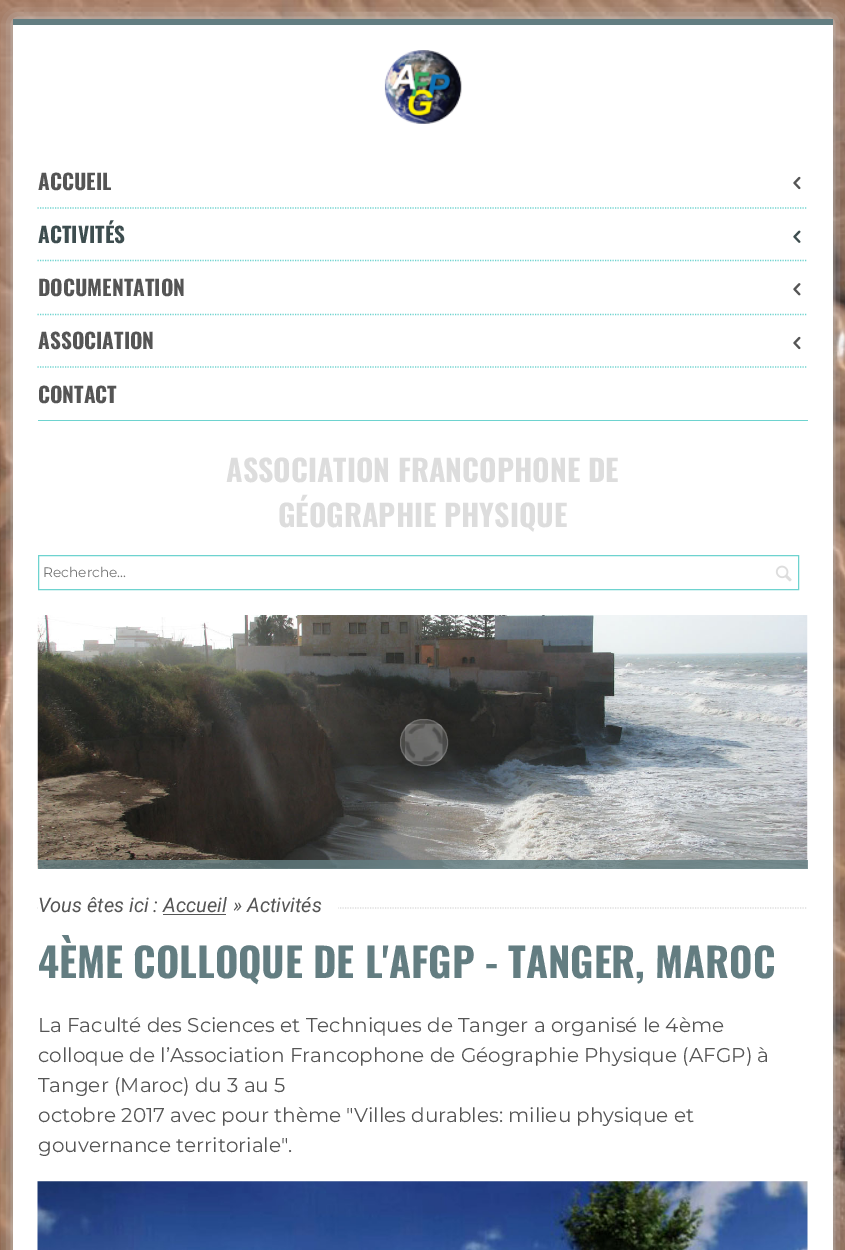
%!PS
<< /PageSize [845 1250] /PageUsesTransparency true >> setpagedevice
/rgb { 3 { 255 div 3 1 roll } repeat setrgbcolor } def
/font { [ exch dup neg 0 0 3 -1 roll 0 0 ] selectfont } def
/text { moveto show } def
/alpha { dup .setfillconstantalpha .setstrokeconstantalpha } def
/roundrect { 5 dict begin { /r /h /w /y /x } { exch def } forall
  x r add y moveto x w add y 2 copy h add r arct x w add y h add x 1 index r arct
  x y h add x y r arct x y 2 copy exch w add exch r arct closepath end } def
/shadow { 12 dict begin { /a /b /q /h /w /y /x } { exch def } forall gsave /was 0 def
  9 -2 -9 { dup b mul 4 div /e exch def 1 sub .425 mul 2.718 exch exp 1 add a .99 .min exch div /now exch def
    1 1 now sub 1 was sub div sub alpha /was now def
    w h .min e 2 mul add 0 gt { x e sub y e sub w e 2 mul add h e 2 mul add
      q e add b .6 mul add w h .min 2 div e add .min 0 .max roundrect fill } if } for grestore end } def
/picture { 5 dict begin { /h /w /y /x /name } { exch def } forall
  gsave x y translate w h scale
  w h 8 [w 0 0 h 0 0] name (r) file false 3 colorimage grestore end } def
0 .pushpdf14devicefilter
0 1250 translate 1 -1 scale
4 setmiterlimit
255 255 255 rgb
0 0 845 1250 rectfill
(img_01.rgb) 0 0 845 1250 picture
198 198 198 rgb
13 19 820 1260 0 9.5 1 shadow
255 255 255 rgb
13 25 820 1225 rectfill
99 125 129 rgb
13 19 820 6 rectfill
110 211 207 rgb
38 420 770 1 rectfill
(img_02.rgb) 384 50 78 74 picture
1.2 setlinewidth
[1.25 1.25] 0 setdash
37.5 208 moveto 770 0 rlineto stroke
(img_03.rgb) 793 176 8 14 picture
37.5 260.5 moveto 770 0 rlineto stroke
(img_04.rgb) 793 230 8 13 picture
37.5 314.5 moveto 770 0 rlineto stroke
(img_05.rgb) 793 283 8 13 picture
37.5 367 moveto 770 0 rlineto stroke
(img_03.rgb) 793 336 8 14 picture
1 setlinewidth
[] 0 setdash
38.5 555.5 760 34 rectstroke
(img_06.rgb) 775 565 17 17 picture
(img_07.rgb) 37 615 771 254 picture
0.8 alpha
99 125 129 rgb
38 860 770 9 rectfill
0.16 alpha
255 255 255 rgb
400 719 48 47 23 roundrect fill
1 alpha
(img_08.rgb) 405 723 38 39 picture
0.18 alpha
400.5 719.5 47 46 22.5 roundrect stroke
1 alpha
221 221 221 rgb
1.2 setlinewidth
[1.25 1.25] 0 setdash
37.5 908 moveto 770 0 rlineto stroke
255 255 255 rgb
38 907 300 2 rectfill
85 85 85 rgb
163 914 63 1 rectfill
(img_09.rgb) 37 1181 771 69 picture
/Oswald-Bold 21.25 font
(ACCUEIL) 38 190 text
61 77 79 rgb
(ACTIVITÉS) 38 243 text
85 85 85 rgb
(DOCUMENTATION) 38 296 text
(ASSOCIATION) 38 349 text
(CONTACT) 38 403 text
/Oswald-Bold 30 font
221 221 221 rgb
(ASSOCIATION FRANCOPHONE DE) 226 482 text
(GÉOGRAPHIE PHYSIQUE) 278 527 text
/Montserrat-Regular 13.75 font
117 117 117 rgb
(Recherche...) 43 577 text
/Roboto-Italic 20 font
85 85 85 rgb
(Vous êtes ici : Accueil) 38 912 text
(» Activités) 233 912 text
255 255 255 rgb
233 910 1 1 rectfill
/Oswald-Bold 40 font
99 125 129 rgb
(4ÈME COLLOQUE DE L'AFGP - TANGER, MAROC) 38 978 text
/Montserrat-Regular 20 font
85 85 85 rgb
(La Faculté des Sciences et Techniques de Tanger a organisé le 4ème) 38 1032 text
(colloque de l’Association Francophone de Géographie Physique \(AFGP\) à) 38 1062 text
(Tanger \(Maroc\) du 3 au 5) 38 1092 text
(octobre 2017 avec pour thème "Villes durables: milieu physique et) 38 1122 text
(gouvernance territoriale".) 38 1152 text
.poppdf14devicefilter showpage
